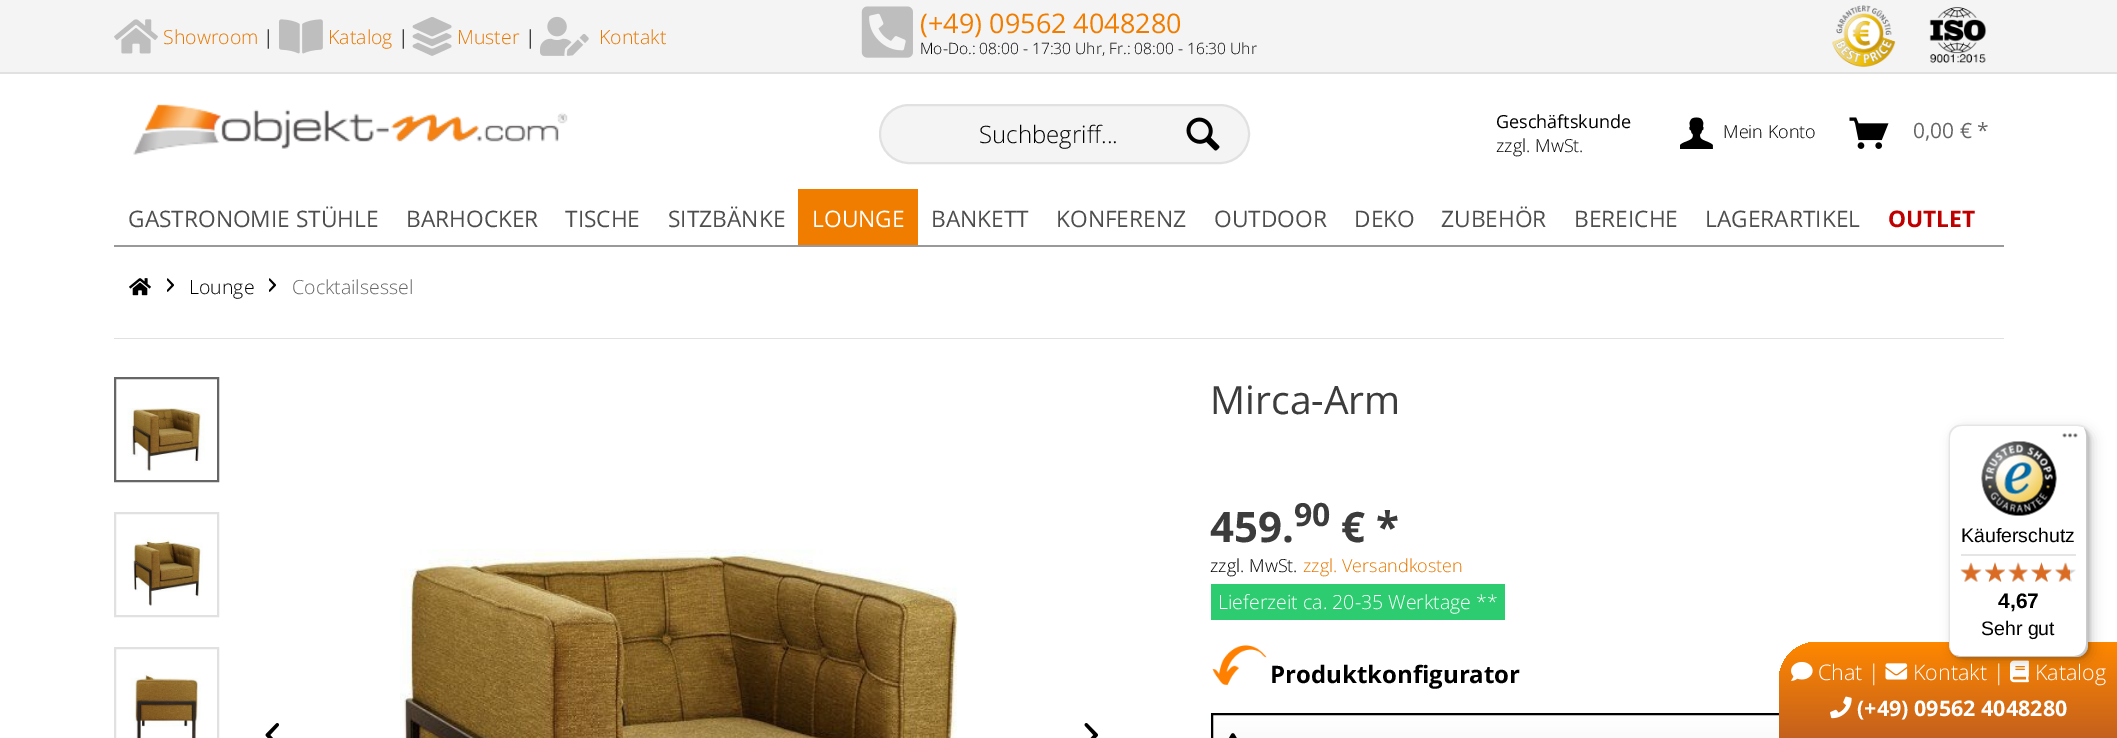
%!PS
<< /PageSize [2117 738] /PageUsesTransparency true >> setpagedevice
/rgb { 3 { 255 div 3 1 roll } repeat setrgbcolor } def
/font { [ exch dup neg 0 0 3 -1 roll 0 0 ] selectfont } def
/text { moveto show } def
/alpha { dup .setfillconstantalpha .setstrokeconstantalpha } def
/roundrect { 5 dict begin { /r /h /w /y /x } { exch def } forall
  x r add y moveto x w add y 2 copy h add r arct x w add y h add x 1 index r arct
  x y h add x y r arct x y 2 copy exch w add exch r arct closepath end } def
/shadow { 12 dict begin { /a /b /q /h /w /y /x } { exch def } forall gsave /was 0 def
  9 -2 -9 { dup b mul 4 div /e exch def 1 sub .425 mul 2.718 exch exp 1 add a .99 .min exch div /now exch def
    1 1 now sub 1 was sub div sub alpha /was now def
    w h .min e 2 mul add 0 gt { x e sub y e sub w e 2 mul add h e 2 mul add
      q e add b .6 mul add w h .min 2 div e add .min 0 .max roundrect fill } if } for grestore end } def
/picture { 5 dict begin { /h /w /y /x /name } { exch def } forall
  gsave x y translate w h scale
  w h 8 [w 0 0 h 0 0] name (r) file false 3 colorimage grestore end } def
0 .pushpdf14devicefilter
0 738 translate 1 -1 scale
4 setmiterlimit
255 255 255 rgb
0 0 2117 738 rectfill
244 244 244 rgb
0 0 2117 72 rectfill
225 225 225 rgb
0 72 2117 2 rectfill
(img_01.rgb) 114 19 44 35 picture
(img_02.rgb) 279 19 44 35 picture
(img_03.rgb) 412 17 40 39 picture
(img_04.rgb) 540 16 49 40 picture
(img_05.rgb) 861 6 52 52 picture
(img_06.rgb) 1832 5 64 62 picture
(img_07.rgb) 1929 7 58 56 picture
(img_08.rgb) 133 104 435 51 picture
244 244 244 rgb
880 105 369 58 29 roundrect gsave fill grestore
225 225 225 rgb
2 setlinewidth
stroke
(img_09.rgb) 1186 117 34 34 picture
(img_10.rgb) 1680 117 33 32 picture
(img_11.rgb) 1849 117 40 32 picture
153 153 153 rgb
114 245 1890 2 rectfill
240 125 0 rgb
798 189 120 56 rectfill
225 225 225 rgb
114 338 1890 1 rectfill
(img_12.rgb) 129 278 22 18 picture
(img_13.rgb) 167 278 7 14 picture
(img_13.rgb) 269 278 7 14 picture
102 102 102 rgb
115 378 103 103 rectstroke
(img_14.rgb) 127 408 78 63 picture
225 225 225 rgb
115 513 103 103 rectstroke
(img_15.rgb) 132 537 71 69 picture
115 648 103 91 rectstroke
(img_16.rgb) 130 671 71 67 picture
(img_17.rgb) 265 723 14 15 picture
(img_18.rgb) 400 549 558 189 picture
(img_19.rgb) 1084 723 14 15 picture
46 204 113 rgb
1211 584 294 36 rectfill
(img_20.rgb) 1212 645 55 41 picture
236 238 241 rgb
1211 714 793 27 0 1 0.8 shadow
gsave 1213 715 moveto 566 0 rlineto 0 23 rlineto -566 0 rlineto closepath clip newpath
<< /ShadingType 2 /ColorSpace /DeviceRGB /Coords [1607 714 1607 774] /Extend [true true] /Function << /FunctionType 2 /Domain [0 1] /C0 [1 1 1] /C1 [0.957 0.957 0.957] /N 1 >> >> shfill grestore
0 0 0 rgb
1212 714 791 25 rectstroke
(img_21.rgb) 1229 733 8 5 picture
gsave 1817 642 moveto 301 0 rlineto 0 96 rlineto -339 0 rlineto 0 -58 rlineto 0 -21 17 -38 38 -38 rcurveto closepath clip newpath
<< /ShadingType 2 /ColorSpace /DeviceRGB /Coords [1949 642 1949 738] /Extend [true true] /Function << /FunctionType 2 /Domain [0 1] /C0 [1 0.533 0] /C1 [0.769 0.376 0.114] /N 1 >> >> shfill grestore
(img_22.rgb) 1791 661 22 20 picture
(img_23.rgb) 1885 663 23 17 picture
(img_24.rgb) 2010 660 19 23 picture
(img_25.rgb) 1830 696 22 23 picture
1953 429 140 233 12 6 0.15 shadow
1950 426 140 233 12 1.5 0.15 shadow
255 255 255 rgb
1949 425 139 232 12 roundrect fill
0.1 alpha
0 0 0 rgb
1962 426 moveto 116 0 rlineto 5 1 rlineto -2 -1 -5 -2 -7 -2 rcurveto -115 0 rlineto -7 0 -12 5 -12 12 rcurveto 0 208 rlineto 0 3 1 6 3 8 rcurveto -1 -2 -2 -4 -2 -7 rcurveto 0 -208 rlineto 0 -7 5 -12 12 -12 rcurveto closepath fill
0.2 alpha
1955 655 moveto 1 1 4 2 6 2 rcurveto 115 0 rlineto 7 0 12 -5 12 -12 rcurveto 0 -208 rlineto 0 -4 -2 -7 -4 -9 rcurveto 1 2 2 4 2 7 rcurveto 0 209 rlineto 0 6 -5 12 -12 12 rcurveto -115 0 rlineto closepath fill
50 50 50 rgb
1953 654 moveto 2 2 5 3 8 3 rcurveto 115 0 rlineto 7 0 12 -5 12 -12 rcurveto 0 -208 rlineto 0 -3 -1 -6 -3 -8 rcurveto 1 2 2 4 2 7 rcurveto 0 208 rlineto 0 7 -5 12 -12 12 rcurveto -115 0 rlineto -3 0 -5 -1 -7 -2 rcurveto closepath fill
0.3 alpha
255 255 255 rgb
1953 654 moveto 2 2 5 3 8 3 rcurveto 115 0 rlineto 7 0 12 -5 12 -12 rcurveto 0 -208 rlineto 0 -3 -1 -6 -3 -8 rcurveto 1 2 2 4 2 7 rcurveto 0 208 rlineto 0 7 -5 12 -12 12 rcurveto -115 0 rlineto -3 0 -5 -1 -7 -2 rcurveto closepath fill
1 alpha
(img_26.rgb) 2062 433 16 5 picture
(img_27.rgb) 1981 441 76 75 picture
229 229 229 rgb
1961 554 115 2 rectfill
(img_33.rgb) 1961 563 20 19 picture
(img_28.rgb) 1960 562 22 20 picture
(img_34.rgb) 1985 562 20 20 picture
(img_29.rgb) 1985 562 20 20 picture
(img_35.rgb) 2008 562 20 20 picture
(img_30.rgb) 2008 562 20 20 picture
(img_36.rgb) 2031 562 21 20 picture
(img_31.rgb) 2031 562 21 20 picture
(img_37.rgb) 2055 563 21 19 picture
(img_32.rgb) 2055 562 15 20 picture
/OpenSans-Light 19.5 font
230 119 0 rgb
(Showroom) 163 44 text
0 0 0 rgb
(|) 263 44 text
230 119 0 rgb
(Katalog) 328 44 text
0 0 0 rgb
(|) 398 44 text
230 119 0 rgb
(Muster) 457 44 text
0 0 0 rgb
(|) 525 44 text
230 119 0 rgb
(Kontakt) 599 44 text
/OpenSans-Regular 27 font
240 125 0 rgb
(\(+49\) 09562 4048280) 920 33 text
/OpenSans-Light 15.6 font
0 0 0 rgb
(Mo-Do.: 08:00 - 17:30 Uhr, Fr.: 08:00 - 16:30 Uhr) 920 54 text
/OpenSans-Light 24 font
(Suchbegriff...) 979 143 text
/OpenSans-Regular 18 font
(Geschäftskunde) 1496 128 text
/OpenSans-Light 18 font
(zzgl. MwSt.) 1496 152 text
(Mein Konto) 1723 138 text
/OpenSans-Regular 21 font
102 102 102 rgb
(0,00 € *) 1913 138 text
/OpenSans-Regular 22.75 font
77 77 77 rgb
(GASTRONOMIE STÜHLE) 128 227 text
(BARHOCKER) 406 227 text
(TISCHE) 565 227 text
(SITZBÄNKE) 668 227 text
255 255 255 rgb
(LOUNGE) 812 227 text
77 77 77 rgb
(BANKETT) 931 227 text
(KONFERENZ) 1056 227 text
(OUTDOOR) 1214 227 text
(DEKO) 1354 227 text
(ZUBEHÖR) 1441 227 text
(BEREICHE) 1574 227 text
(LAGERARTIKEL) 1705 227 text
/OpenSans-Bold 22.75 font
191 0 0 rgb
(OUTLET) 1888 227 text
/OpenSans-Light 19.5 font
0 0 0 rgb
(Lounge) 189 294 text
102 102 102 rgb
(Cocktailsessel) 292 294 text
/OpenSans-Regular 39 font
60 60 60 rgb
(Mirca-Arm) 1210 414 text
/OpenSans-Bold 42 font
(459.) 1210 542 text
/OpenSans-Bold 32 font
(90) 1294 526 text
/OpenSans-Bold 42 font
(€ *) 1341 542 text
/OpenSans-Light 18 font
0 0 0 rgb
(zzgl. MwSt.) 1210 572 text
230 119 0 rgb
(zzgl. Versandkosten) 1303 572 text
/OpenSans-Light 19.5 font
255 255 255 rgb
(Lieferzeit ca. 20-35 Werktage **) 1218 609 text
/OpenSans-Bold 24 font
0 0 0 rgb
(Produktkonfigurator) 1270 683 text
/OpenSans-Light 21.5 font
255 255 255 rgb
(Chat |) 1818 680 text
(Kontakt |) 1913 680 text
(Katalog) 2035 680 text
/OpenSans-Bold 21.5 font
(\(+49\) 09562 4048280) 1857 716 text
/LiberationSans-Regular 19.5 font
0 0 0 rgb
(Käuferschutz) 1961 542 text
/LiberationSans-Bold 21 font
(4,67) 1998 608 text
/LiberationSans-Regular 19.5 font
(Sehr gut) 1981 635 text
.poppdf14devicefilter showpage
